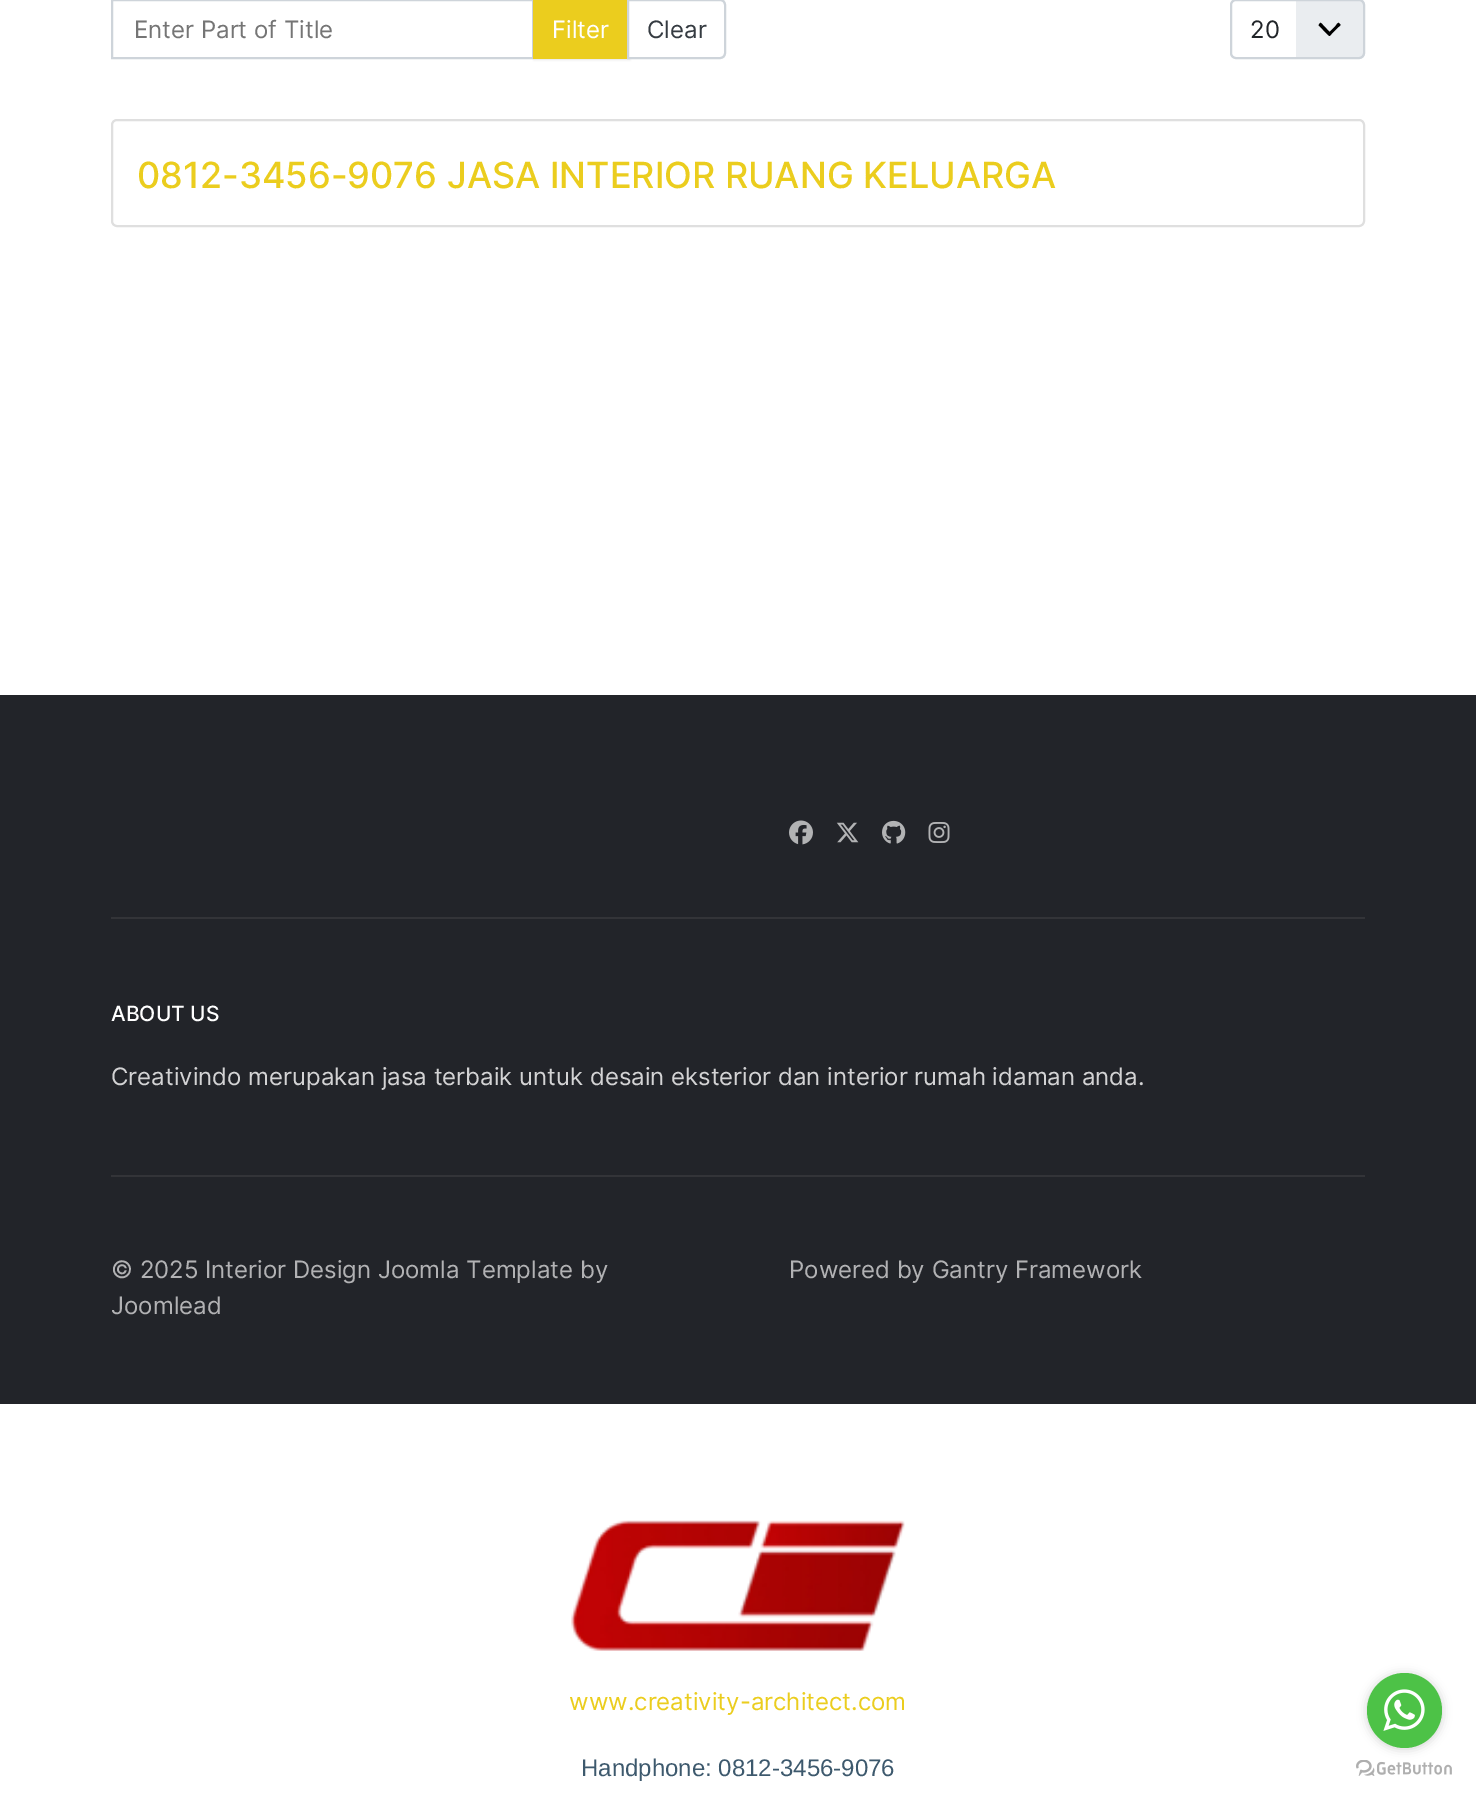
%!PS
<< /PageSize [1476 1796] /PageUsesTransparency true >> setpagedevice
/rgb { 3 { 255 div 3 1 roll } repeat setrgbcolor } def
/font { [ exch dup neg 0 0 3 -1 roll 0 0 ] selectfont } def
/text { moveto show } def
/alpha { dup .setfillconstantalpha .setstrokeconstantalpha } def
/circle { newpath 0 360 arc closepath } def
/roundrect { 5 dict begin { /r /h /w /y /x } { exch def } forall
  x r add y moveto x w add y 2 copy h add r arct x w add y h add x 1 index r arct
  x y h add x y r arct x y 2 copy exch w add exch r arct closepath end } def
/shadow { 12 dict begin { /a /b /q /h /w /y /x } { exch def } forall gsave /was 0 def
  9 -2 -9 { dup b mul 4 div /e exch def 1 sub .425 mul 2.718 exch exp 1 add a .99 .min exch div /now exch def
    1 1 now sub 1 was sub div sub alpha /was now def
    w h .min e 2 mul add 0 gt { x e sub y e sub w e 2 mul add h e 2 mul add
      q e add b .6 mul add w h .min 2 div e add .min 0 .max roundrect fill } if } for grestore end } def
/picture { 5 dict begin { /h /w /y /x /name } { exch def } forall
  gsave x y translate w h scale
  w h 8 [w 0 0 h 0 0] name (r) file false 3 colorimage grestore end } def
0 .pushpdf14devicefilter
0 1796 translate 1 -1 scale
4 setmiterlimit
255 255 255 rgb
0 0 1476 1796 rectfill
206 212 218 rgb
2 setlinewidth
112 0 421 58 rectstroke
0 0 0 rgb
534 0 96 60 0 1 0.1 shadow
235 205 30 rgb
533 0 94 59 rectfill
255 255 255 rgb
628 0 moveto 92 0 rlineto 3 0 5 2 5 5 rcurveto 0 48 rlineto 0 3 -2 5 -5 5 rcurveto -92 0 rlineto closepath gsave fill grestore
206 212 218 rgb
stroke
234 237 240 rgb
1230 -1 135 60 6 roundrect fill
0 0 0 rgb
1318.5 25 moveto 8.5 9 rlineto 3 2.5 2 2.5 4.5 0 rcurveto 7 -7 rlineto 0.5 -0.5 2 -1.5 2 -2.5 rcurveto -1.5 -1.5 rlineto -1 -1 -3.5 3 -3.5 3 rcurveto -6 6 rlineto -5.5 -6 rlineto -0.5 0 -3 -4 -4 -3 rcurveto -1 1.5 rlineto -0.5 0.5 -0.5 0.5 -0.5 0.5 rcurveto closepath fill
255 255 255 rgb
1236 -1 moveto 60 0 rlineto 0 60 rlineto -60 0 rlineto -3.5 0 -6 -2.5 -6 -6 rcurveto 0 -48 rlineto 0 -3.5 2.5 -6 6 -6 rcurveto closepath fill
206 212 218 rgb
1231 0 133 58 5 roundrect stroke
223 223 223 rgb
112 120 1252 106 5 roundrect stroke
34 36 41 rgb
0 695 1476 709 rectfill
(img_01.rgb) 789 820 24 25 picture
(img_02.rgb) 836 822 23 21 picture
(img_03.rgb) 882 820 24 24 picture
(img_04.rgb) 928 822 22 21 picture
51 52 56 rgb
111 917 1254 2 rectfill
111 1175 1254 2 rectfill
(img_05.rgb) 571 1520 334 131 picture
(img_07.rgb) 1356 1760 96 16 picture
136 136 136 rgb
1367 1674 75 75 37.5 5 0.4 shadow
77 194 71 rgb
1404.5 1710.5 37.5 circle fill
(img_06.rgb) 1383 1689 42 42 picture
/Inter-Regular 24 font
117 117 117 rgb
(Enter Part of Title) 134 38 text
255 255 255 rgb
(Filter) 552 38 text
53 59 65 rgb
(Clear) 647 38 text
33 37 41 rgb
(20) 1250 38 text
/Inter-Medium 36 font
235 205 30 rgb
(0812-3456-9076 JASA INTERIOR RUANG KELUARGA) 137 188 text
/Inter-Medium 21 font
255 255 255 rgb
(ABOUT US) 111 1021 text
/Inter-Regular 24 font
211 211 212 rgb
(Creativindo merupakan jasa terbaik untuk desain eksterior dan interior rumah idaman anda.) 111 1085 text
178 178 180 rgb
(© 2025 Interior Design Joomla Template by) 111 1278 text
(Joomlead) 111 1314 text
(Powered by Gantry Framework) 789 1278 text
235 205 30 rgb
(www.creativity-architect.com) 569 1710 text
/LiberationSans-Regular 24 font
61 89 109 rgb
(Handphone: 0812-3456-9076) 581 1776 text
.poppdf14devicefilter showpage
